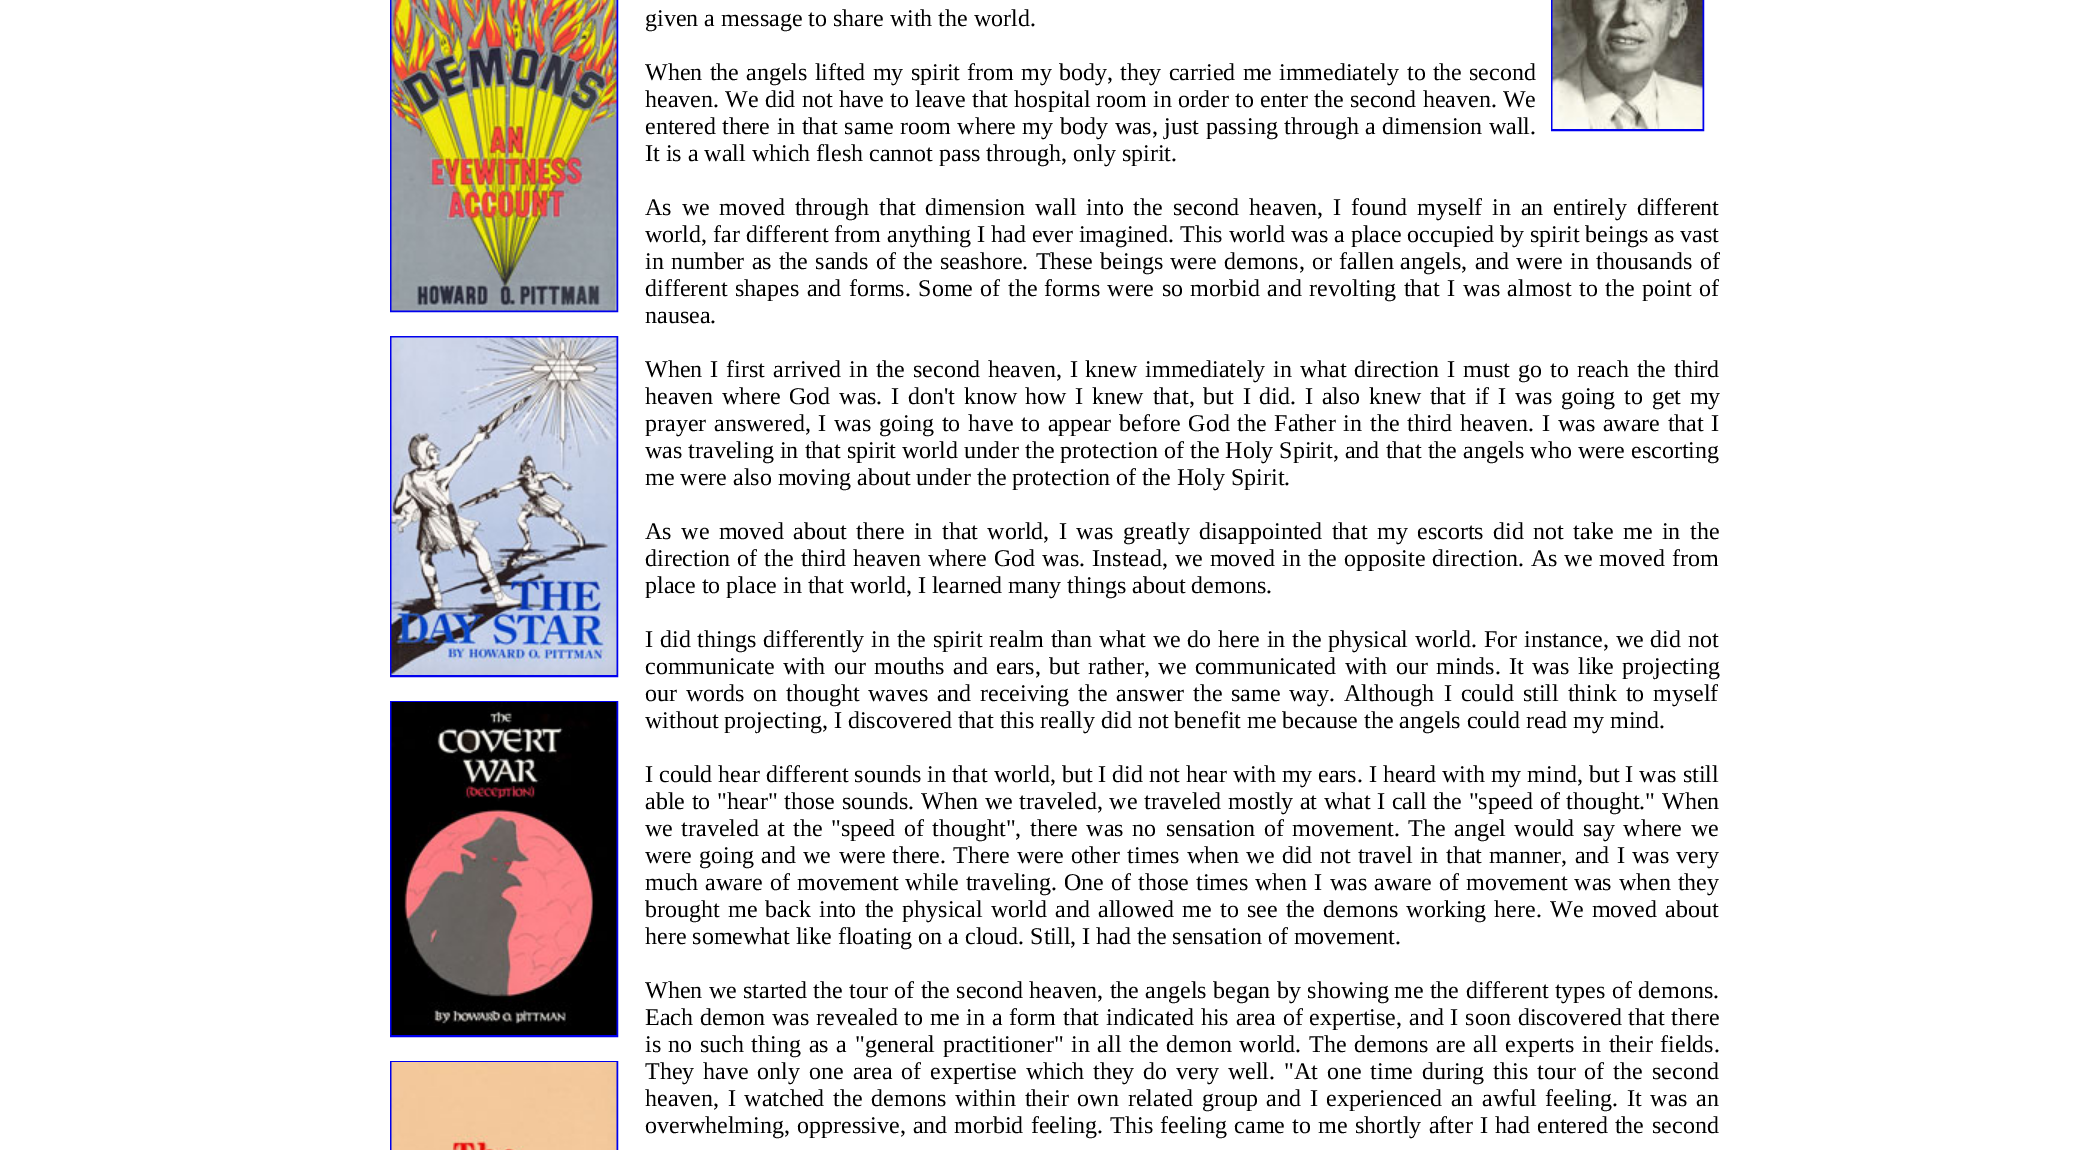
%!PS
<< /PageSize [2088 1150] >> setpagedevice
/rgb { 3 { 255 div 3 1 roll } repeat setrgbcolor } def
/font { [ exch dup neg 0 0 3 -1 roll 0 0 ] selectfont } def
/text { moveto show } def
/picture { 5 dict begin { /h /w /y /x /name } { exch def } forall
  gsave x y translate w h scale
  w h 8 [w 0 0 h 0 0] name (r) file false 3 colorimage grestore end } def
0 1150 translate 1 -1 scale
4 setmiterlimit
255 255 255 rgb
0 0 2088 1150 rectfill
0 0 238 rgb
2 setlinewidth
391 -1 226 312 rectstroke
(img_01.rgb) 391 0 226 311 picture
391 337 226 339 rectstroke
(img_02.rgb) 391 337 226 338 picture
391 702 226 334 rectstroke
(img_03.rgb) 391 702 226 333 picture
391 1062 226 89 rectstroke
(img_04.rgb) 391 1062 226 88 picture
1552 -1 151 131 rectstroke
(img_05.rgb) 1552 0 151 129 picture
/LiberationSerif-Regular 24 font
0 0 0 rgb
(given a message to share with the world.) 645 26 text
645 80 moveto 1.25 0 32 (When the angels lifted my spirit from my body, they carried me immediately) widthshow
1407 80 moveto 1 0 32 (to the second) widthshow
645 107 moveto 0.25 0 32 (heaven. We did not have to leave that hospital room in order) widthshow
1235 107 moveto 0.25 0 32 (to enter the second heaven. We) widthshow
645 134 moveto 0.5 0 32 (entered there in that same room where my) widthshow
1060 134 moveto 0.5 0 32 (body was, just passing through a dimension wall.) widthshow
(It is a wall which flesh cannot pass through, only spirit.) 645 161 text
645 215 moveto 3.9 0 32 (As we moved through that dimension wall into the second heaven, I found) widthshow
1417 215 moveto 3.9 0 32 (myself in an entirely different) widthshow
(world, far different from anything I had ever imagined. This world was a place occupied by spirit beings as vast) 645 242 text
(in) 645 269 text
671 269 moveto 1.25 0 32 (number as the sands of the seashore. These beings were demons, or fallen) widthshow
1400 269 moveto 1.25 0 32 (angels, and were in thousands of) widthshow
645 296 moveto 1.5 0 32 (different shapes and forms. Some of the) widthshow
1044 296 moveto 1.5 0 32 (forms were so morbid and revolting that I was almost to the point of) widthshow
(nausea.) 645 323 text
645 377 moveto 2 0 32 (When I first arrived in the second heaven, I knew immediately in what) widthshow
1354 377 moveto 2 0 32 (direction I must go to reach the third) widthshow
645 404 moveto 2.75 0 32 (heaven where God was. I don't know) widthshow
1025 404 moveto 2.75 0 32 (how I knew that, but I did. I also knew that if I was going to get my) widthshow
645 431 moveto 1.75 0 32 (prayer answered, I was going to have to appear before God the Father in) widthshow
1370 431 moveto 1.75 0 32 (the third heaven. I was aware that I) widthshow
645 458 moveto 0.1 0 32 (was traveling in that spirit world under the protection of the Holy Spirit, and that the angels who were) widthshow
(escorting) 1631 458 text
(me were also moving about under the protection of the Holy Spirit.) 645 485 text
645 539 moveto 3.5 0 32 (As we moved about there in that world, I was greatly disappointed that my) widthshow
1417 539 moveto 3.5 0 32 (escorts did not take me in the) widthshow
645 566 moveto 1 0 32 (direction of the third heaven where God) widthshow
1042 566 moveto 1 0 32 (was. Instead, we moved in the opposite direction. As we moved from) widthshow
(place to place in that world, I learned many things about demons.) 645 593 text
645 647 moveto 0.9 0 32 (I did things differently in the spirit realm than what we do here in the) widthshow
1328 647 moveto 0.9 0 32 (physical world. For instance, we did not) widthshow
645 674 moveto 2.4 0 32 (communicate with our mouths and) widthshow
996 674 moveto 2.4 0 32 (ears, but rather, we communicated with our minds. It was like projecting) widthshow
645 701 moveto 2.75 0 32 (our words on thought waves and receiving the answer the same way. Although) widthshow
1444 701 moveto 2.75 0 32 (I could still think to myself) widthshow
(without projecting, I discovered that this really did not benefit me because the angels could read my mind.) 645 728 text
(I could hear different sounds in that world, but I did not hear with my) 645 782 text
(ears. I heard with my mind, but I was still) 1318 782 text
645 809 moveto 0.6 0 32 (able to "hear" those sounds.) widthshow
921 809 moveto 0.6 0 32 (When we traveled, we traveled mostly at what I call the "speed of) widthshow
1566 809 moveto 1 0 32 (thought." When) widthshow
645 836 moveto 2.5 0 32 (we traveled at the "speed of thought", there was no) widthshow
1166 836 moveto 2.5 0 32 (sensation of movement. The angel would say where we) widthshow
645 863 moveto 1.4 0 32 (were going and we were) widthshow
892 863 moveto 1.4 0 32 (there. There were other times when we did not travel in that manner, and I) widthshow
1632 863 moveto 1 0 32 (was very) widthshow
645 890 moveto 1.1 0 32 (much aware of movement while traveling. One of those times when I) widthshow
1330 890 moveto 1.1 0 32 (was aware of movement was when they) widthshow
645 917 moveto 2.25 0 32 (brought me back into the physical) widthshow
991 917 moveto 2.25 0 32 (world and allowed me to see the demons working here. We moved about) widthshow
(here somewhat like floating on a cloud. Still, I had the sensation of movement.) 645 944 text
645 998 moveto 0.4 0 32 (When we started the tour of the second heaven, the angels began by showing) widthshow
1394 998 moveto 0.5 0 32 (me the different types of demons.) widthshow
645 1025 moveto 0.9 0 32 (Each demon was revealed to me in a form) widthshow
1063 1025 moveto 0.9 0 32 (that indicated his area of expertise, and I soon discovered that there) widthshow
(is) 645 1052 text
668 1052 moveto 1.75 0 32 (no such thing as a "general practitioner" in all the demon world. The) widthshow
1354 1052 moveto 1.75 0 32 (demons are all experts in their fields.) widthshow
645 1079 moveto 2.9 0 32 (They have only one area of) widthshow
930 1079 moveto 2.9 0 32 (expertise which they do very well. "At one time during this tour of the) widthshow
(second) 1652 1079 text
645 1106 moveto 2.75 0 32 (heaven, I watched the demons within their own related group and I) widthshow
1326 1106 moveto 2.75 0 32 (experienced an awful feeling. It was an) widthshow
645 1133 moveto 1.25 0 32 (overwhelming, oppressive, and) widthshow
954 1133 moveto 1.25 0 32 (morbid feeling. This feeling came to me shortly after I had entered the) widthshow
(second) 1652 1133 text
showpage
